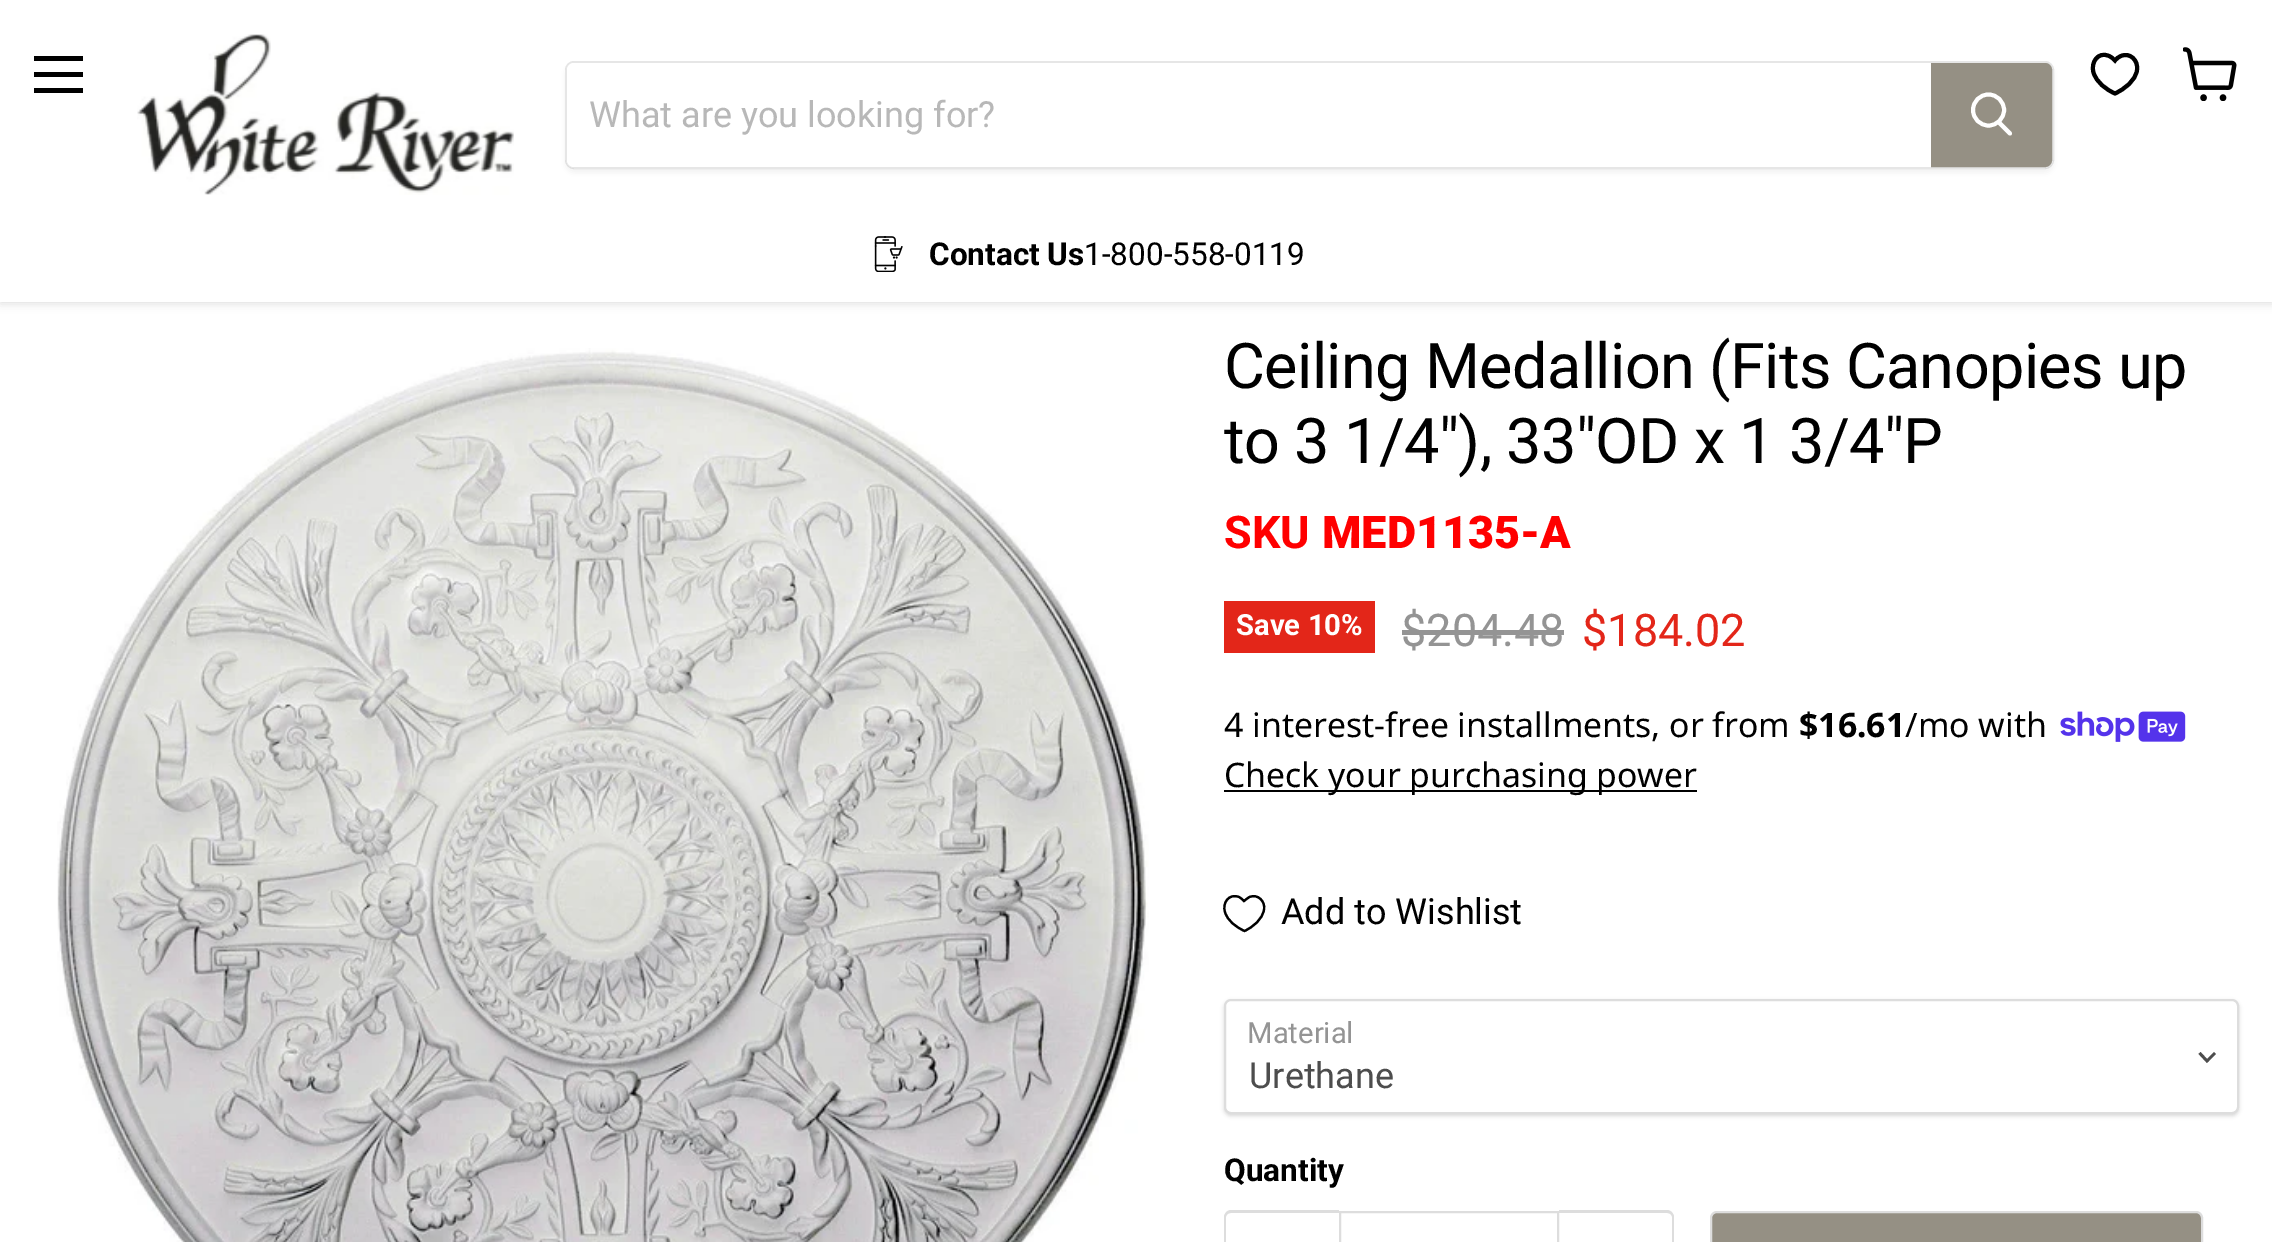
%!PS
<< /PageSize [2272 1242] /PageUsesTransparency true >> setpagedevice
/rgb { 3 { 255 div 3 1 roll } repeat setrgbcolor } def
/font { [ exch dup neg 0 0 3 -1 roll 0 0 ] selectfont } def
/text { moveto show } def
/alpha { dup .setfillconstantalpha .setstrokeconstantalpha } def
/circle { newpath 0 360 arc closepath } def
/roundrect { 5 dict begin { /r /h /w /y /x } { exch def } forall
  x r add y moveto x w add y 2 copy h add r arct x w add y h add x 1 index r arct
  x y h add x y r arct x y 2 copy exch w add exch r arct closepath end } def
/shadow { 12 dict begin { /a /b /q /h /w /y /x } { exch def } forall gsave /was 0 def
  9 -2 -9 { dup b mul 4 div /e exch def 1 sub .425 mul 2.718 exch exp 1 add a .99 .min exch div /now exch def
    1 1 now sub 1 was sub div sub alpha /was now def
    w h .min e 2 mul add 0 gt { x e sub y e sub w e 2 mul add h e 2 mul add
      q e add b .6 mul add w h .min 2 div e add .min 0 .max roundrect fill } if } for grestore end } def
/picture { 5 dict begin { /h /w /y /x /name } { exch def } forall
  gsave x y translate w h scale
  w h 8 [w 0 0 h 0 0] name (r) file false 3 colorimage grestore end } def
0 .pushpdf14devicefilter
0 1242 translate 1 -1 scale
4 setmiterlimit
255 255 255 rgb
0 0 2272 1242 rectfill
128 128 128 rgb
0 2 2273 302 0 4.5 0.25 shadow
255 255 255 rgb
0 0 2272 302 rectfill
0 0 0 rgb
34 56 49 5 rectfill
34 72 49 5 rectfill
34 88 49 5 rectfill
4 setlinewidth
2115 93.5 moveto -9 -4 -18.5 -11 -21.5 -21 rcurveto -3 -10 4.5 -21.5 15.5 -16.5 rcurveto 2.5 1 4 2.5 6 4.5 rcurveto 1.5 -2 3.5 -3.5 6 -4.5 rcurveto 9 -4 17.5 4.5 16 14 rcurveto -1.5 11 -12.5 19 -22 23.5 rcurveto closepath stroke
(img_01.rgb) 2183 47 54 54 picture
(img_02.rgb) 137 34 377 161 picture
gsave
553 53 moveto 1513 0 rlineto 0 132 rlineto -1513 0 rlineto closepath 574 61 moveto 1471 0 rlineto 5 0 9 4 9 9 rcurveto 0 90 rlineto 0 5 -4 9 -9 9 rcurveto -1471 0 rlineto -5 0 -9 -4 -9 -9 rcurveto 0 -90 rlineto 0 -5 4 -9 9 -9 rcurveto closepath eoclip newpath
128 128 128 rgb
565 65 1489 108 9 3.5 0.11 shadow
grestore
0.2 alpha
128 128 128 rgb
2 setlinewidth
566 62 1487 106 8 roundrect stroke
1 alpha
255 255 255 rgb
574 63 moveto 1357 0 rlineto 0 104 rlineto -1357 0 rlineto -4 0 -7 -3 -7 -7 rcurveto 0 -90 rlineto 0 -4 3 -7 7 -7 rcurveto closepath fill
149 144 132 rgb
1932 64 moveto 113 0 rlineto 3.5 0 6 2.5 6 6 rcurveto 0 90 rlineto 0 3.5 -2.5 6 -6 6 rcurveto -113 0 rlineto closepath gsave fill grestore
stroke
255 255 255 rgb
3.9 setlinewidth
1 setlinecap
2010 133.5 moveto -11 -11 rlineto stroke
0 setlinecap
1988.5 110 15.5 circle stroke
(img_03.rgb) 874 236 29 36 picture
(img_04.rgb) 57 348 1092 894 picture
227 38 25 rgb
1224 601 151 52 rectfill
148 148 148 rgb
1402 630 162 5 rectfill
(img_05.rgb) 2060 711 126 31 picture
0 0 0 rgb
1224 790 473 2 rectfill
2.2 setlinewidth
1244.5 931 moveto -8.5 -4 -17 -10 -19.5 -19 rcurveto -3 -9 4 -19 14 -15 rcurveto 2 1 3.5 2.5 5 4 rcurveto 2 -1.5 3.5 -3 5.5 -4 rcurveto 8.5 -3.5 16 4.5 14.5 12.5 rcurveto -1.5 10 -11 17.5 -19.5 21.5 rcurveto closepath stroke
1224 1001 1015 115 7 2 0.15 shadow
255 255 255 rgb
1225 1000 1013 113 6 roundrect gsave fill grestore
221 221 221 rgb
2 setlinewidth
stroke
77 77 77 rgb
2.8 setlinewidth
2 setlinecap
2207 1061 moveto 7 -7 rlineto 2207 1061 moveto -6.5 -7 rlineto stroke
221 221 221 rgb
1231 1210 moveto 108 0 rlineto 0 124 rlineto -108 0 rlineto -4 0 -7 -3 -7 -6 rcurveto 0 -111 rlineto 0 -3 3 -7 7 -7 rcurveto closepath 1231 1213 moveto 108 0 rlineto 0 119 rlineto -108 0 rlineto -3 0 -5 -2 -5 -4 rcurveto 0 -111 rlineto 0 -2 2 -4 5 -4 rcurveto closepath eofill
2 setlinewidth
0 setlinecap
1340 1212 218 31 rectstroke
1559 1210 moveto 108 0 rlineto 4 0 7 4 7 7 rcurveto 0 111 rlineto 0 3 -3 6 -7 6 rcurveto -108 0 rlineto closepath 1559 1213 moveto 108 0 rlineto 3 0 5 2 5 4 rcurveto 0 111 rlineto 0 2 -2 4 -5 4 rcurveto -108 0 rlineto closepath eofill
149 144 132 rgb
1711 1212 491 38 6 roundrect gsave fill grestore
221 221 221 rgb
stroke
/Roboto-Regular 36 font
184 184 184 rgb
(What are you looking for?) 589 127 text
/Roboto-Bold 31.5 font
0 0 0 rgb
(Contact Us) 929 265 text
/Roboto-Regular 31.5 font
(1-800-558-0119) 1084 265 text
/Roboto-Regular 63 font
1224 388 moveto -0.65 0 (Ceiling Medallion \(Fits Canopies up) ashow
1224 463 moveto -0.65 0 (to 3 1/4"\), 33"OD x 1 3/4"P) ashow
/Roboto-Bold 45 font
255 0 0 rgb
(SKU) 1224 548 text
/Roboto-Black 45 font
(MED1135-A) 1322 548 text
/Roboto-Bold 29.25 font
255 255 255 rgb
(Save 10%) 1236 635 text
/Roboto-Regular 45 font
148 148 148 rgb
($204.48) 1401 646 text
227 38 25 rgb
($184.02) 1582 646 text
/NotoSans-Regular 33.75 font
0 0 0 rgb
(4 interest-free installments, or from) 1224 737 text
/NotoSans-Bold 33.75 font
($16.61) 1799 737 text
/NotoSans-Regular 33.75 font
(/mo with) 1905 737 text
(Check your purchasing power) 1224 787 text
/Roboto-Regular 36 font
(Add to Wishlist) 1281 924 text
/Roboto-Regular 29.25 font
148 148 148 rgb
(Material) 1247 1043 text
/Roboto-Regular 36 font
77 77 77 rgb
(Urethane) 1249 1088 text
/Roboto-Bold 31.5 font
0 0 0 rgb
(Quantity) 1224 1181 text
.poppdf14devicefilter showpage
